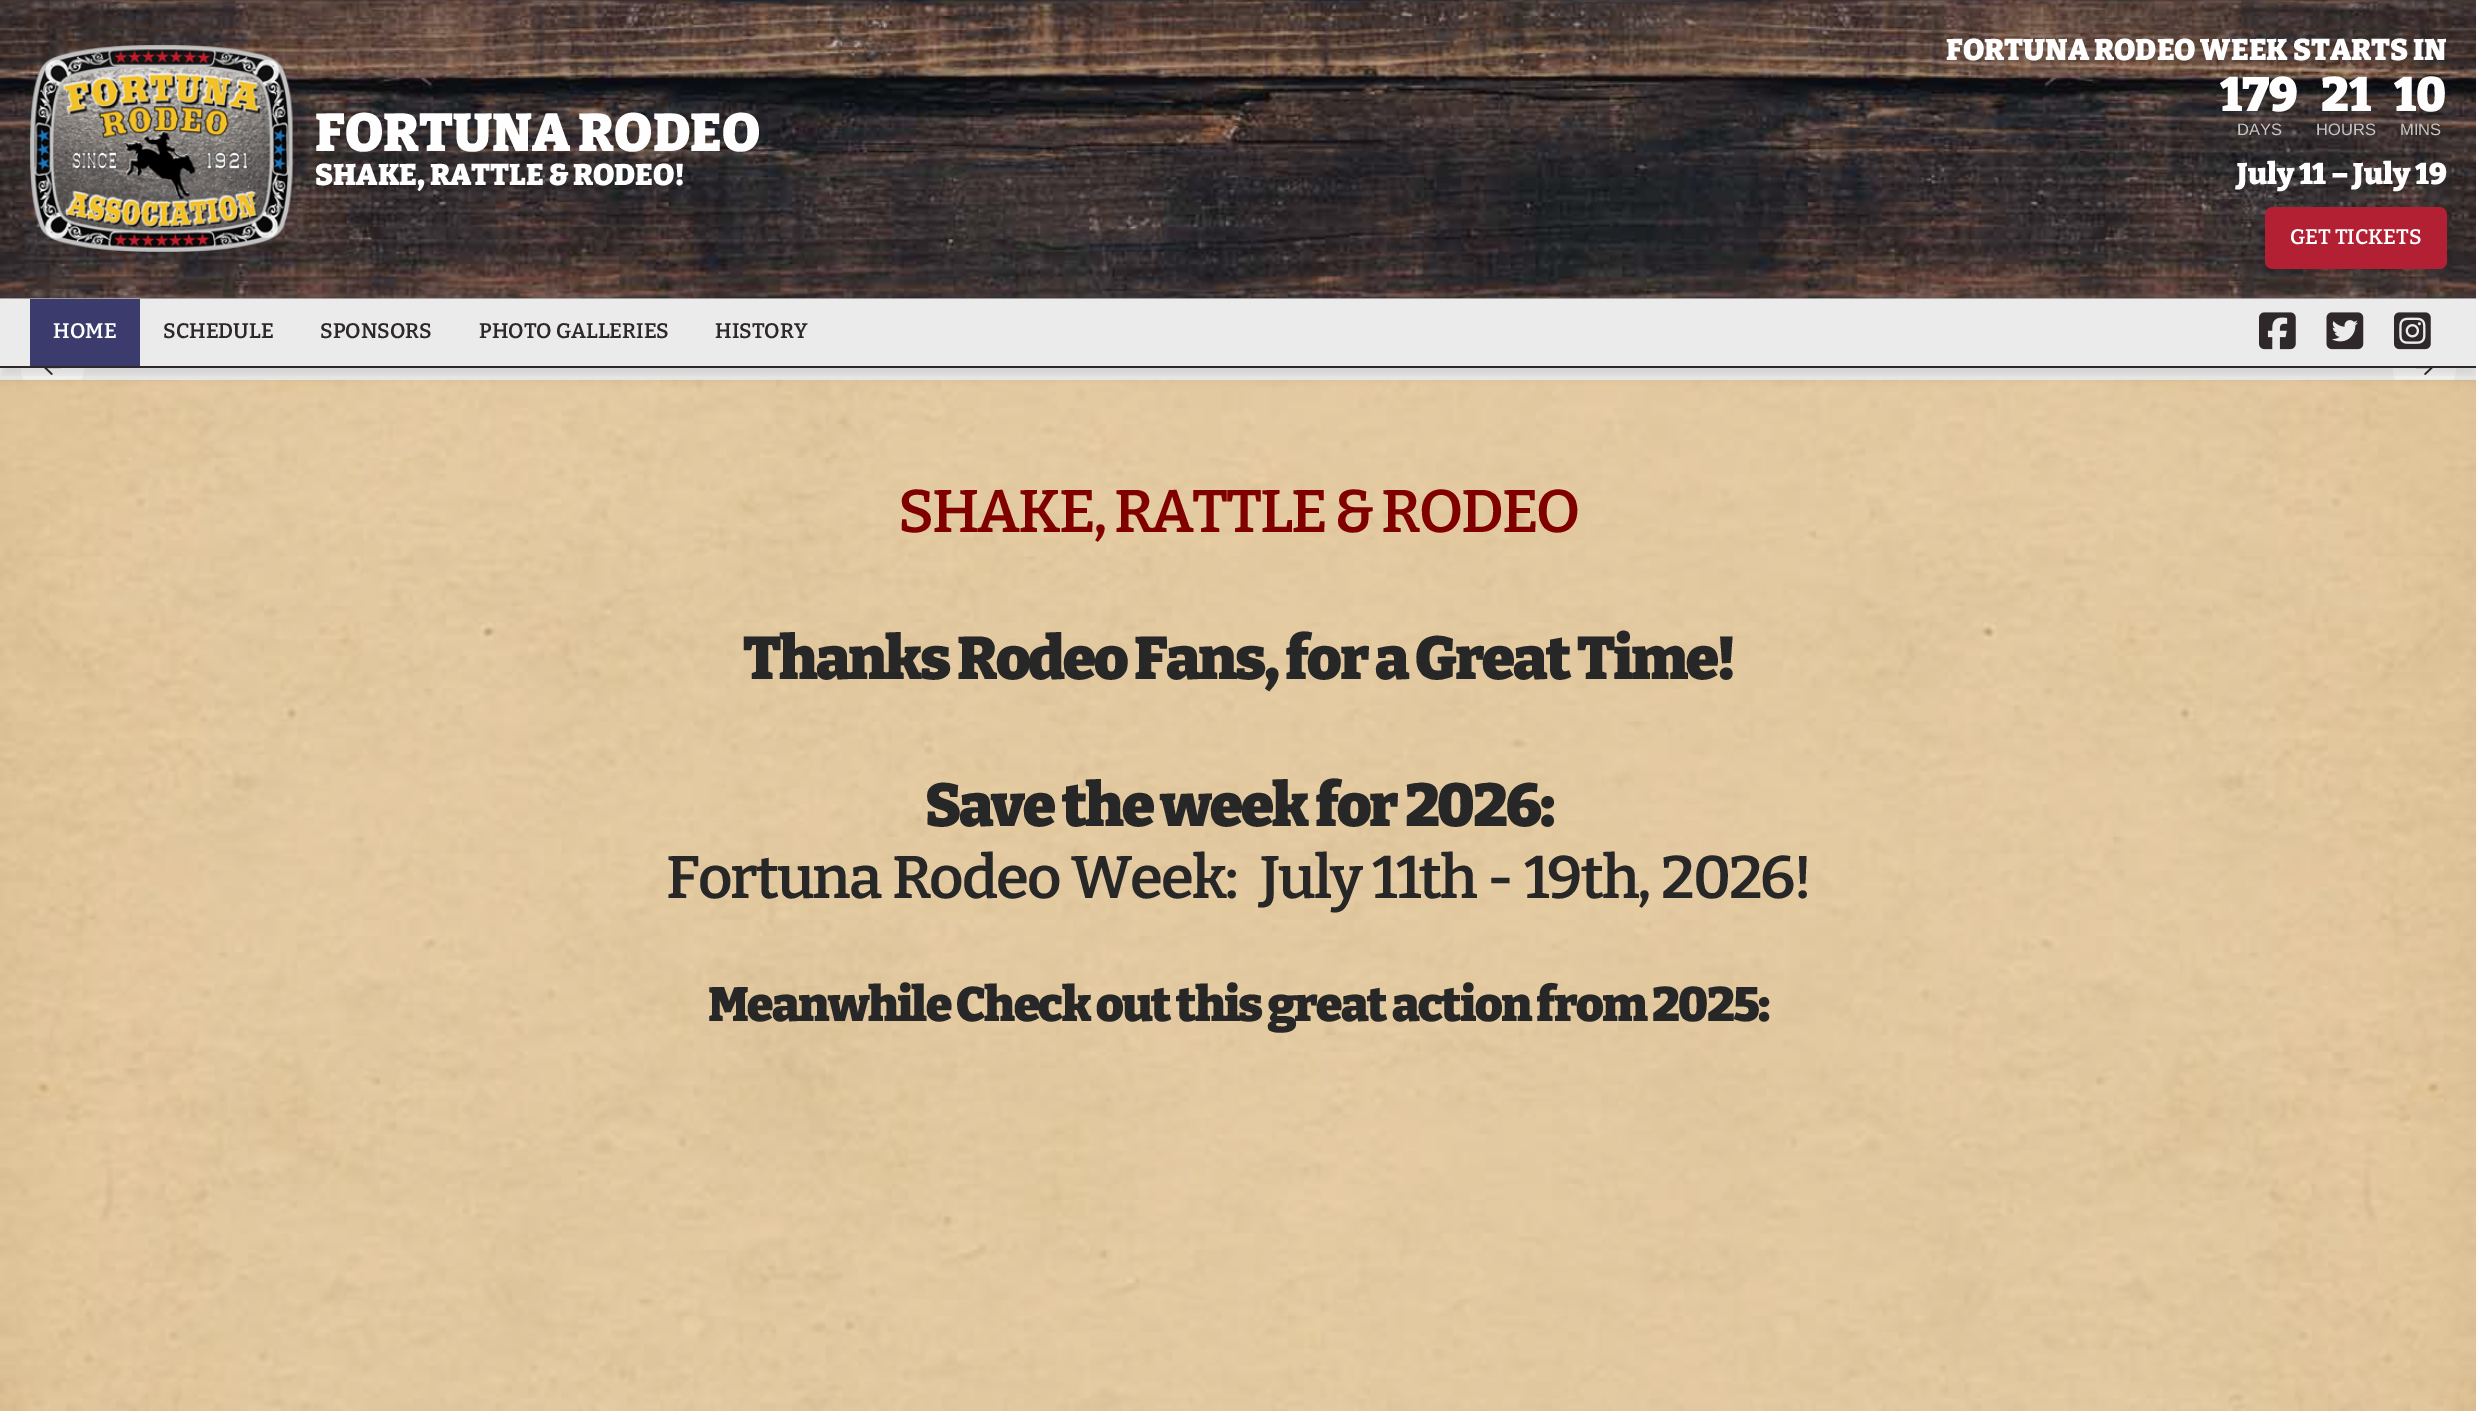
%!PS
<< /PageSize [2476 1411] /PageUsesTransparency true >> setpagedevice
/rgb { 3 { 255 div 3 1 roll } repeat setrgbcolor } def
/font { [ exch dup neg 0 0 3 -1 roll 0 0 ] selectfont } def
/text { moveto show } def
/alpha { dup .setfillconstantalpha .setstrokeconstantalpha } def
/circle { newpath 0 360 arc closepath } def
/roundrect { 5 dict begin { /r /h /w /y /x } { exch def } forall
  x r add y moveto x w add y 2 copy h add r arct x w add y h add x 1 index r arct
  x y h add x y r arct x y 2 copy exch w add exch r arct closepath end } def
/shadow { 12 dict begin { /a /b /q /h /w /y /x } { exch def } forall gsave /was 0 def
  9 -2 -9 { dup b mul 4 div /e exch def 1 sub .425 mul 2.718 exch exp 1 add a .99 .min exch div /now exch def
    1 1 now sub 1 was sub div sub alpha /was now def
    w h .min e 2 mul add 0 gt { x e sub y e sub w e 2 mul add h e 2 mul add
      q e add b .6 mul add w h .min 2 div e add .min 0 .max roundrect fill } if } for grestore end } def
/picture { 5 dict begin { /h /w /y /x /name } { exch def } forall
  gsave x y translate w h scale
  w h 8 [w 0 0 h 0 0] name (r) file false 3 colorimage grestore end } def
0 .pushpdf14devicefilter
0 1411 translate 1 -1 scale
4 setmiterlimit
243 243 243 rgb
0 0 2476 1411 rectfill
254 254 254 rgb
52.5 367.5 31.5 circle fill
2424.5 367.5 31.5 circle fill
0 0 0 rgb
0 5 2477 298 0 19 0.15 shadow
(img_01.rgb) 0 0 2476 299 picture
0.22 alpha
46 40 42 rgb
0 0 2476 299 rectfill
1 alpha
(img_02.rgb) 30 45 263 207 picture
180 32 51 rgb
2265 207 182 62 8 roundrect fill
(img_06.rgb) 44 368 17 7 picture
(img_07.rgb) 2416 368 17 7 picture
(img_08.rgb) 0 379 2476 1032 picture
0 0 0 rgb
0 308 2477 69 0 4.5 0.12 shadow
235 235 235 rgb
0 299 2476 67 rectfill
46 40 42 rgb
0 366 2476 2 rectfill
60 59 110 rgb
30 299 110 67 rectfill
(img_03.rgb) 2259 312 37 38 picture
(img_04.rgb) 2326 312 38 38 picture
(img_05.rgb) 2394 312 37 38 picture
/Bitter-Black 53.1 font
254 254 254 rgb
(FORTUNA RODEO) 315 151 text
/Bitter-Black 29.8 font
(SHAKE, RATTLE & RODEO!) 315 185 text
(FORTUNA RODEO WEEK STARTS IN) 1946 60 text
/Bitter-Black 48 font
(179) 2220 111 text
/LiberationSans-Regular 16.5 font
196 196 196 rgb
(DAYS) 2237 135 text
/Bitter-Black 48 font
254 254 254 rgb
(21) 2321 111 text
/LiberationSans-Regular 16.5 font
196 196 196 rgb
(HOURS) 2316 135 text
/Bitter-Black 48 font
254 254 254 rgb
(10) 2394 111 text
/LiberationSans-Regular 16.5 font
196 196 196 rgb
(MINS) 2400 135 text
/Bitter-Black 29.8 font
254 254 254 rgb
(July 11 – July 19) 2237 184 text
/Bitter-SemiBold 21 font
(GET TICKETS) 2290 244 text
(HOME) 53 338 text
46 40 42 rgb
(SCHEDULE) 163 338 text
(SPONSORS) 320 338 text
(PHOTO GALLERIES) 479 338 text
(HISTORY) 715 338 text
/Bitter-SemiBold 60 font
128 0 0 rgb
898 532 moveto -1 0 32 -2.1 0 (SHAKE, RATTLE & RODEO) awidthshow
/Bitter-Black 60 font
39 39 39 rgb
743 679 moveto -2.1 0 (Thanks Rodeo Fans, for a Great Time!) ashow
925 826 moveto -2.1 0 (Save the week for 2026:) ashow
/Bitter-SemiBold 60 font
666 898 moveto 2.75 0 32 -2.1 0 (Fortuna Rodeo Week:  July 11th - 19th, 2026!) awidthshow
/Bitter-Black 48 font
708 1021 moveto -1.7 0 (Meanwhile Check out this great action from 2025:) ashow
.poppdf14devicefilter showpage
